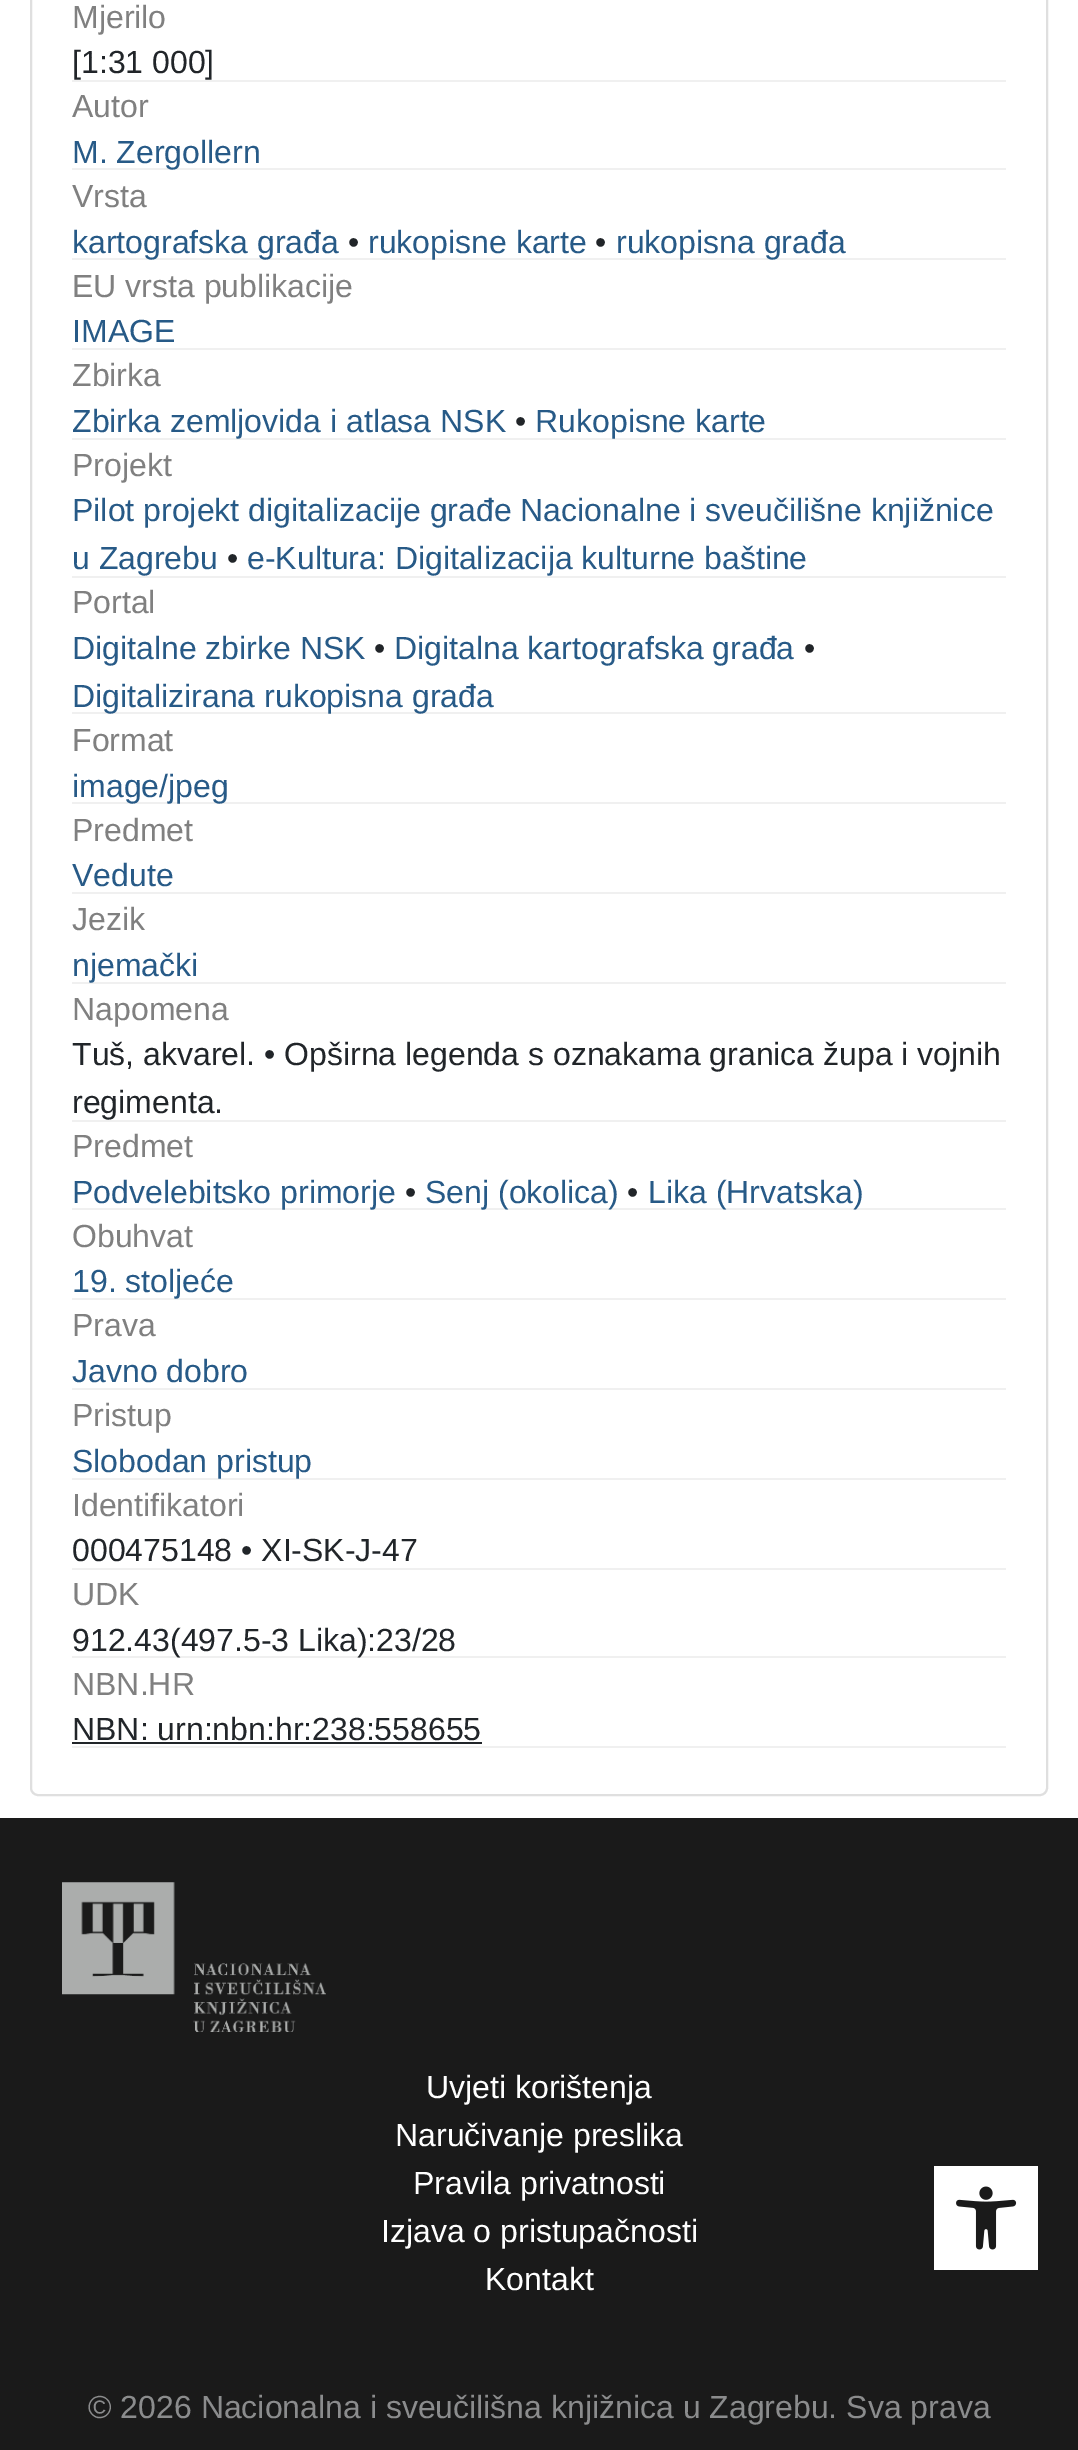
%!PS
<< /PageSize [1078 2450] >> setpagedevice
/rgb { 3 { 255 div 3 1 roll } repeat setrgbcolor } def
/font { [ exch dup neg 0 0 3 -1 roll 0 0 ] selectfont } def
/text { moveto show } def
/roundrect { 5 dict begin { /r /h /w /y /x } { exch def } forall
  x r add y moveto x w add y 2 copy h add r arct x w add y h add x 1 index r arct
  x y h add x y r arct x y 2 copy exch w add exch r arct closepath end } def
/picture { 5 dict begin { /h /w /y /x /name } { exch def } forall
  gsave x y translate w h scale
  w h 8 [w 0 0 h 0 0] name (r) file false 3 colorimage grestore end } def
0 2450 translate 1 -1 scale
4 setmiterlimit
255 255 255 rgb
0 0 1078 2450 rectfill
223 223 223 rgb
2 setlinewidth
31 -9 1016 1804 7 roundrect stroke
240 240 240 rgb
72 80 934 2 rectfill
72 168 934 2 rectfill
72 258 934 2 rectfill
72 348 934 2 rectfill
72 438 934 2 rectfill
72 576 934 2 rectfill
72 712 934 2 rectfill
72 802 934 2 rectfill
72 892 934 2 rectfill
72 982 934 2 rectfill
72 1120 934 2 rectfill
72 1208 934 2 rectfill
72 1298 934 2 rectfill
72 1388 934 2 rectfill
72 1478 934 2 rectfill
72 1568 934 2 rectfill
72 1656 934 2 rectfill
33 37 41 rgb
72 1742 410 2 rectfill
240 240 240 rgb
72 1746 934 2 rectfill
26 26 26 rgb
0 1818 1078 632 rectfill
(img_01.rgb) 62 1882 264 150 picture
255 255 255 rgb
934 2166 104 104 rectfill
(img_02.rgb) 956 2186 61 64 picture
/LiberationSans-Regular 32 font
128 128 128 rgb
(Mjerilo) 72 28 text
33 37 41 rgb
([1:31 000]) 72 73 text
128 128 128 rgb
(Autor) 72 117 text
39 90 135 rgb
(M. Zergollern) 72 163 text
128 128 128 rgb
(Vrsta) 72 207 text
39 90 135 rgb
(kartografska građa) 72 253 text
33 37 41 rgb
(•) 348 253 text
39 90 135 rgb
(rukopisne karte) 368 253 text
33 37 41 rgb
(•) 595 253 text
39 90 135 rgb
(rukopisna građa) 616 253 text
128 128 128 rgb
(EU vrsta publikacije) 72 297 text
39 90 135 rgb
(IMAGE) 72 342 text
128 128 128 rgb
(Zbirka) 72 386 text
39 90 135 rgb
(Zbirka zemljovida i atlasa NSK) 72 432 text
33 37 41 rgb
(•) 515 432 text
39 90 135 rgb
(Rukopisne karte) 535 432 text
128 128 128 rgb
(Projekt) 72 476 text
39 90 135 rgb
(Pilot projekt digitalizacije građe Nacionalne i sveučilišne knjižnice) 72 521 text
(u Zagrebu) 72 569 text
33 37 41 rgb
(•) 227 569 text
39 90 135 rgb
(e-Kultura: Digitalizacija kulturne baštine) 247 569 text
128 128 128 rgb
(Portal) 72 613 text
39 90 135 rgb
(Digitalne zbirke NSK) 72 659 text
33 37 41 rgb
(•) 374 659 text
39 90 135 rgb
(Digitalna kartografska građa) 394 659 text
33 37 41 rgb
(•) 804 659 text
39 90 135 rgb
(Digitalizirana rukopisna građa) 72 707 text
128 128 128 rgb
(Format) 72 751 text
39 90 135 rgb
(image/jpeg) 72 797 text
128 128 128 rgb
(Predmet) 72 841 text
39 90 135 rgb
(Vedute) 72 886 text
128 128 128 rgb
(Jezik) 72 930 text
39 90 135 rgb
(njemački) 72 976 text
128 128 128 rgb
(Napomena) 72 1020 text
33 37 41 rgb
(Tuš, akvarel. • Opširna legenda s oznakama granica župa i vojnih) 72 1065 text
(regimenta.) 72 1113 text
128 128 128 rgb
(Predmet) 72 1157 text
39 90 135 rgb
(Podvelebitsko primorje) 72 1203 text
33 37 41 rgb
(•) 405 1203 text
39 90 135 rgb
(Senj \(okolica\)) 425 1203 text
33 37 41 rgb
(•) 627 1203 text
39 90 135 rgb
(Lika \(Hrvatska\)) 648 1203 text
128 128 128 rgb
(Obuhvat) 72 1247 text
39 90 135 rgb
(19. stoljeće) 72 1292 text
128 128 128 rgb
(Prava) 72 1336 text
39 90 135 rgb
(Javno dobro) 72 1382 text
128 128 128 rgb
(Pristup) 72 1426 text
39 90 135 rgb
(Slobodan pristup) 72 1472 text
128 128 128 rgb
(Identifikatori) 72 1516 text
33 37 41 rgb
(000475148 • XI-SK-J-47) 72 1561 text
128 128 128 rgb
(UDK) 72 1605 text
33 37 41 rgb
(912.43\(497.5-3 Lika\):23/28) 72 1651 text
128 128 128 rgb
(NBN.HR) 72 1695 text
33 37 41 rgb
(NBN: urn:nbn:hr:238:558655) 72 1740 text
255 255 255 rgb
(Uvjeti korištenja) 426 2098 text
(Naručivanje preslika) 395 2146 text
(Pravila privatnosti) 413 2194 text
(Izjava o pristupačnosti) 381 2242 text
(Kontakt) 485 2290 text
139 140 141 rgb
(© 2026 Nacionalna i sveučilišna knjižnica u Zagrebu. Sva prava) 88 2418 text
showpage
